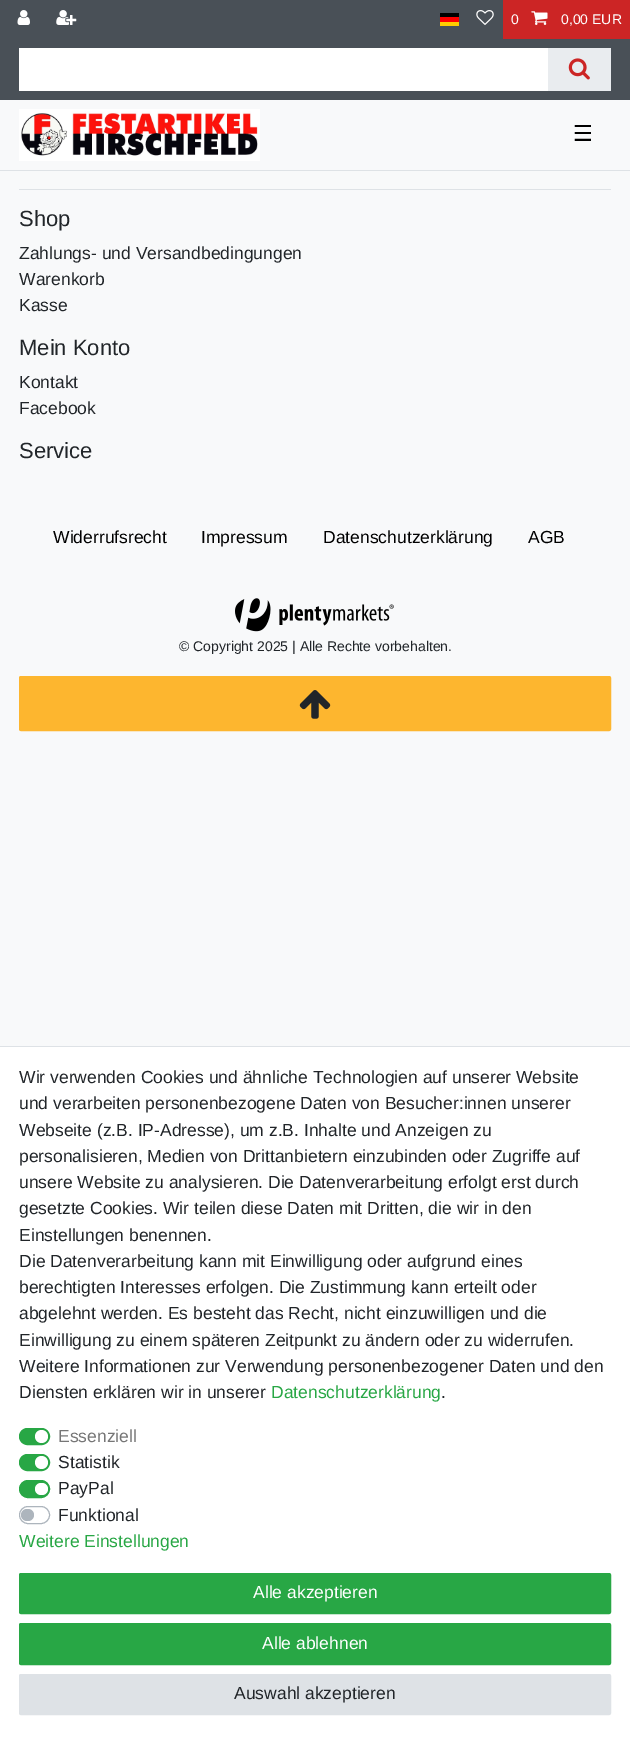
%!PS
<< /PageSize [630 1741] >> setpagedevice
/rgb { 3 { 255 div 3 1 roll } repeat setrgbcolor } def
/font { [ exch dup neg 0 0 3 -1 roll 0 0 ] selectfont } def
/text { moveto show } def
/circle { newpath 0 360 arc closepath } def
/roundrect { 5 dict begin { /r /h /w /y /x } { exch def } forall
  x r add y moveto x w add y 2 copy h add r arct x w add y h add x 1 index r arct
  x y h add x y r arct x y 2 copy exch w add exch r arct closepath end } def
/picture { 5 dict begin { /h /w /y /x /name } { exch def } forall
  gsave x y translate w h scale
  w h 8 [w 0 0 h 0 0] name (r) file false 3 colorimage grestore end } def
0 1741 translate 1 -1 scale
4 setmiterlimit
248 249 250 rgb
0 0 630 1741 rectfill
73 80 87 rgb
0 0 630 100 rectfill
(img_01.rgb) 17 10 13 15 picture
(img_02.rgb) 56 10 21 15 picture
255 204 0 rgb
440 22 19 4 rectfill
0 0 0 rgb
440 13 19 4 rectfill
255 0 0 rgb
440 17 19 5 rectfill
(img_03.rgb) 476 10 18 15 picture
204 37 37 rgb
503 0 127 39 rectfill
(img_04.rgb) 531 11 17 14 picture
255 255 255 rgb
19 48 529 43 rectfill
233 236 239 rgb
548 48 63 43 rectfill
(img_05.rgb) 568 58 22 22 picture
222 226 230 rgb
0 170 630 1 rectfill
(img_06.rgb) 19 109 241 52 picture
19 189 592 1 rectfill
(img_07.rgb) 235 598 159 34 picture
255 255 255 rgb
0 1047 630 694 rectfill
222 226 230 rgb
0 1046 630 1 rectfill
40 167 69 rgb
19.5 1428.5 30 16 8 roundrect gsave fill grestore
stroke
255 255 255 rgb
41.5 1436.5 6.5 circle fill
40 167 69 rgb
19.5 1454.5 30 16 8 roundrect gsave fill grestore
stroke
255 255 255 rgb
41.5 1462.5 6.5 circle fill
40 167 69 rgb
19.5 1480.5 30 17 8.5 roundrect gsave fill grestore
stroke
255 255 255 rgb
35 1483 13 12 6 roundrect fill
173 181 189 rgb
19.5 1506.5 30 17 8.5 roundrect stroke
21 1509 13 12 6 roundrect fill
40 167 69 rgb
19.5 1573.5 591 40 1.5 roundrect gsave fill grestore
stroke
19.5 1623.5 591 41 1.5 roundrect gsave fill grestore
stroke
222 226 230 rgb
19.5 1674.5 591 40 1.5 roundrect gsave fill grestore
stroke
253 182 47 rgb
19.5 676.5 591 54 1.5 roundrect gsave fill grestore
stroke
(img_08.rgb) 299 690 32 29 picture
/LiberationSans-Regular 14 font
255 255 255 rgb
(0) 511 24 text
(0,00 EUR) 561 24 text
/DejaVuSans-Regular 22 font
0 0 0 rgb
(☰) 573 141 text
/LiberationSans-Regular 22 font
33 37 41 rgb
(Shop) 19 226 text
/LiberationSans-Regular 17.5 font
(Zahlungs- und Versandbedingungen) 19 259 text
(Warenkorb) 19 285 text
(Kasse) 19 311 text
/LiberationSans-Regular 22 font
(Mein Konto) 19 355 text
/LiberationSans-Regular 17.5 font
(Kontakt) 19 388 text
(Facebook) 19 414 text
/LiberationSans-Regular 22 font
(Service) 19 458 text
/LiberationSans-Regular 17.5 font
0 0 0 rgb
(Widerrufsrecht) 53 543 text
(Impressum) 201 543 text
(Datenschutzerklärung) 323 543 text
(AGB) 528 543 text
/LiberationSans-Regular 14 font
33 37 41 rgb
(© Copyright 2025 | Alle Rechte vorbehalten.) 179 651 text
/LiberationSans-Regular 17.5 font
(Wir verwenden Cookies und ähnliche Technologien auf unserer Website) 19 1083 text
(und verarbeiten personenbezogene Daten von Besucher:innen unserer) 19 1109 text
(Webseite \(z.B. IP-Adresse\), um z.B. Inhalte und Anzeigen zu) 19 1136 text
(personalisieren, Medien von Drittanbietern einzubinden oder Zugriffe auf) 19 1162 text
(unsere Website zu analysieren. Die Datenverarbeitung erfolgt erst durch) 19 1188 text
(gesetzte Cookies. Wir teilen diese Daten mit Dritten, die wir in den) 19 1214 text
(Einstellungen benennen.) 19 1241 text
(Die Datenverarbeitung kann mit Einwilligung oder aufgrund eines) 19 1267 text
(berechtigten Interesses erfolgen. Die Zustimmung kann erteilt oder) 19 1293 text
(abgelehnt werden. Es besteht das Recht, nicht einzuwilligen und die) 19 1319 text
(Einwilligung zu einem späteren Zeitpunkt zu ändern oder zu widerrufen.) 19 1346 text
(Weitere Informationen zur Verwendung personenbezogener Daten und den) 19 1372 text
(Diensten erklären wir in unserer) 19 1398 text
40 167 69 rgb
(Datenschutzerklärung) 271 1398 text
33 37 41 rgb
(.) 441 1398 text
118 118 118 rgb
(Essenziell) 58 1442 text
33 37 41 rgb
(Statistik) 58 1468 text
(PayPal) 58 1494 text
(Funktional) 58 1521 text
40 167 69 rgb
(Weitere Einstellungen) 19 1547 text
255 255 255 rgb
(Alle akzeptieren) 253 1598 text
(Alle ablehnen) 262 1649 text
33 37 41 rgb
(Auswahl akzeptieren) 234 1699 text
showpage
